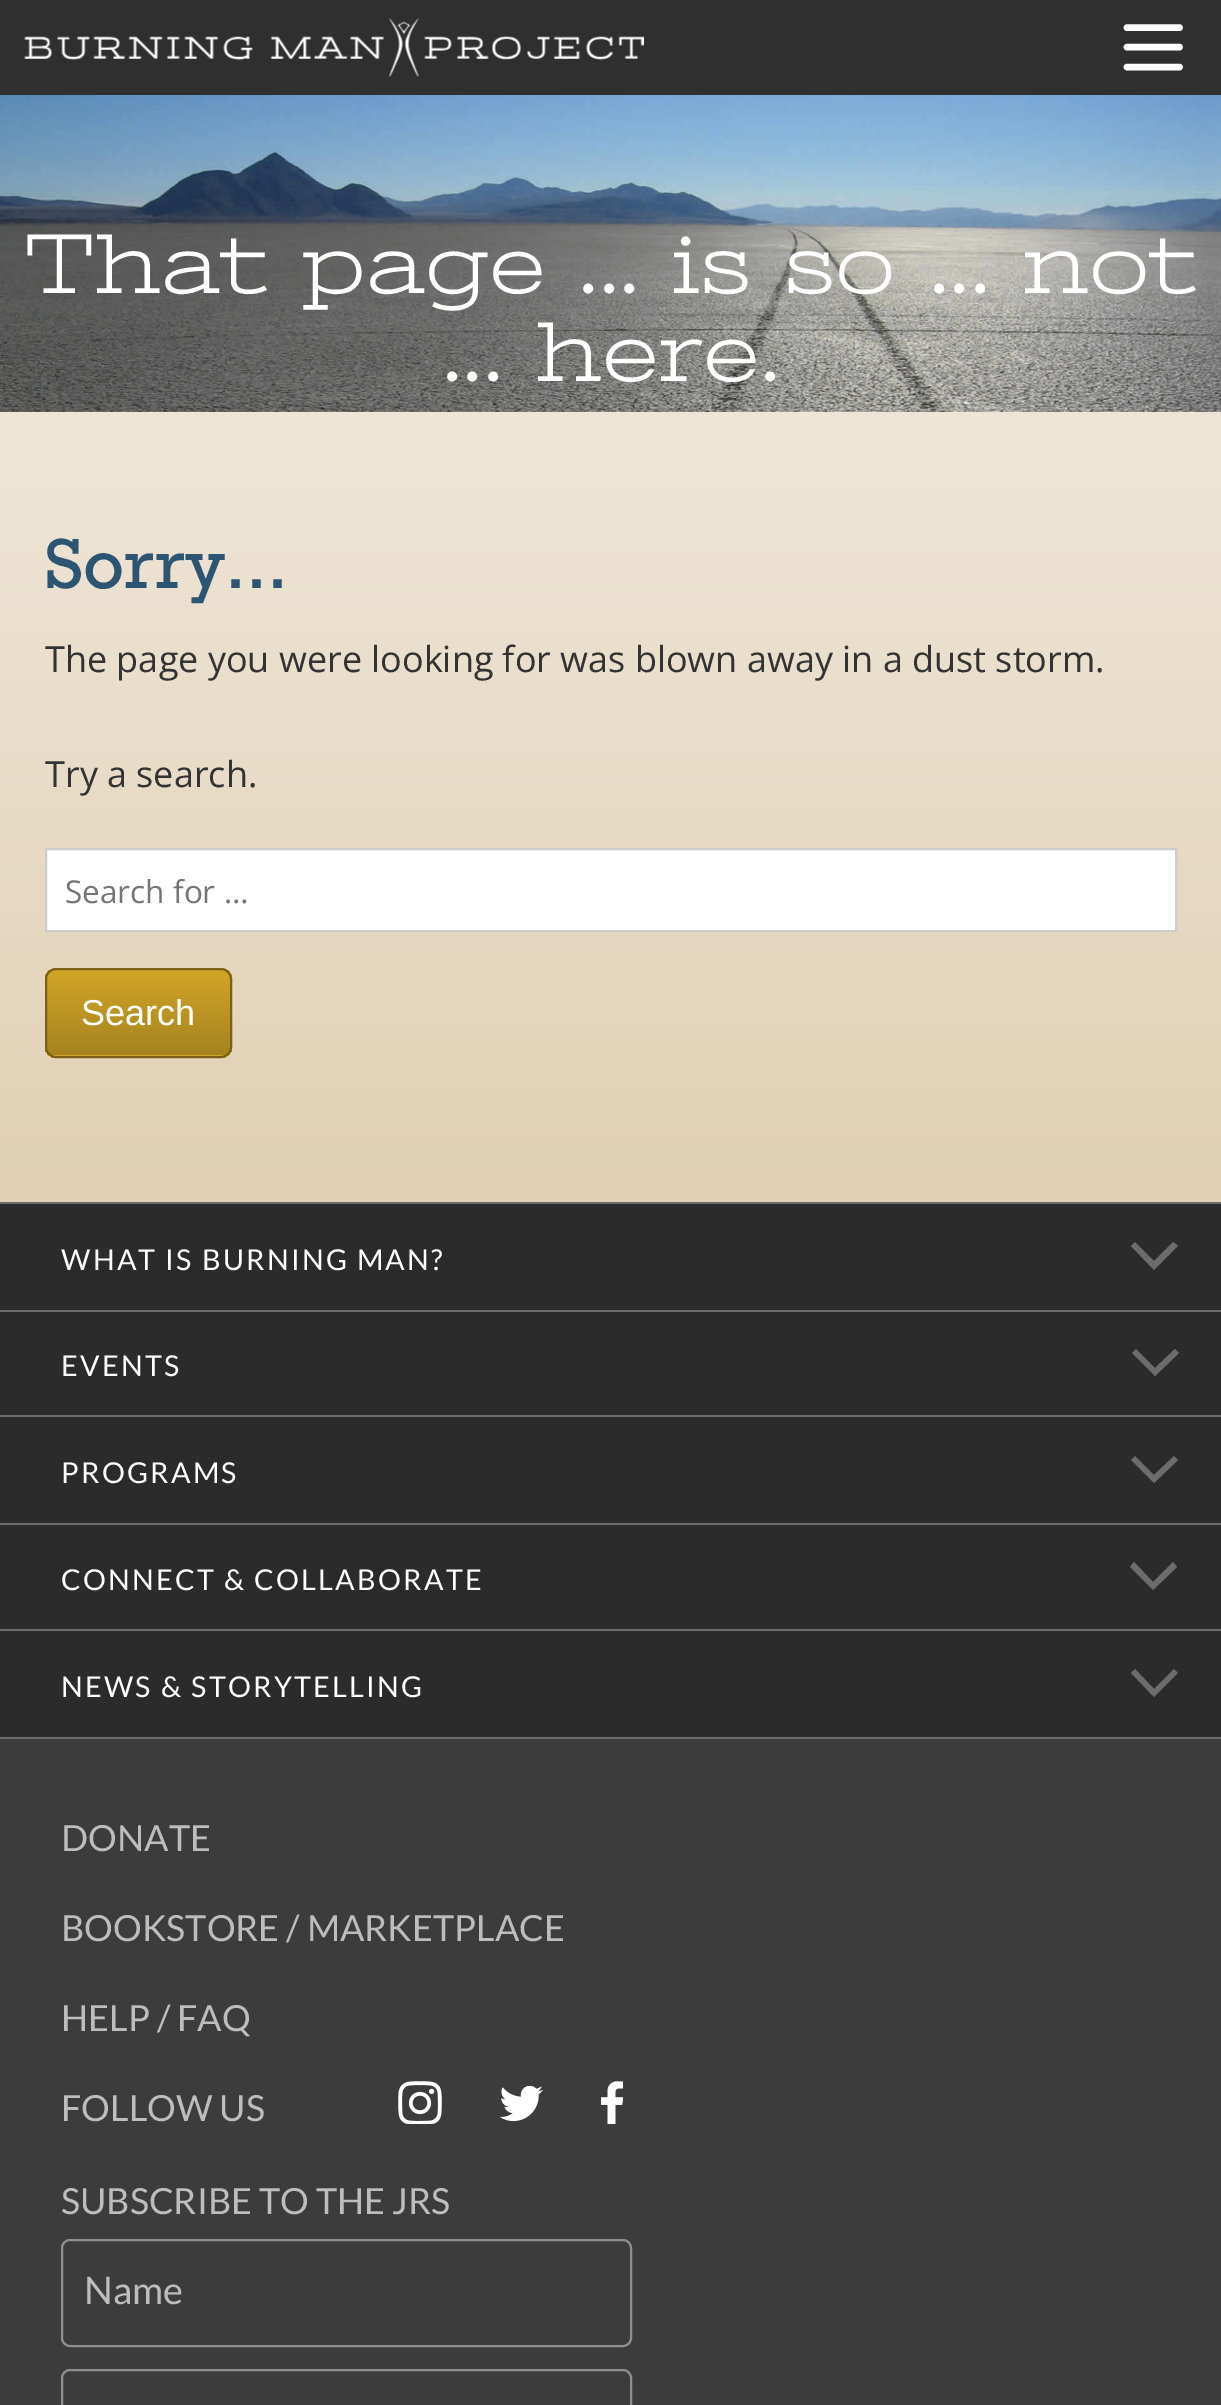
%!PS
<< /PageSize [1221 2405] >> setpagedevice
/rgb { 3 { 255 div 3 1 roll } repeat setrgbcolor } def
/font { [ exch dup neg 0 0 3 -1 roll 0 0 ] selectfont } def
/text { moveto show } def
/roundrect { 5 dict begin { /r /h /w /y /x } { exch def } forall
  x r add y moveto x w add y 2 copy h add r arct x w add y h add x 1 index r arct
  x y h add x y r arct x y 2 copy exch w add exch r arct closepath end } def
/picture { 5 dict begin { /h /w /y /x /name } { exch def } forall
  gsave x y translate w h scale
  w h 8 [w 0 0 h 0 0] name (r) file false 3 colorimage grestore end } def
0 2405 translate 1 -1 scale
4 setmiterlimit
255 255 255 rgb
0 0 1221 2405 rectfill
gsave 0 411 moveto 1221 0 rlineto 0 791 rlineto -1221 0 rlineto closepath clip newpath
<< /ShadingType 2 /ColorSpace /DeviceRGB /Coords [611 0 611 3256] /Extend [true true] /Function << /FunctionType 3 /Domain [0 1] /Functions [<< /FunctionType 2 /Domain [0 1] /C0 [0.969 0.949 0.922] /C1 [0.737 0.6 0.345] /N 1 >> << /FunctionType 2 /Domain [0 1] /C0 [0.737 0.6 0.345] /C1 [0.737 0.6 0.345] /N 1 >>] /Bounds [0.97] /Encode [0 1 0 1] >> >> shfill grestore
47 47 47 rgb
0 0 1221 95 rectfill
(img_01.rgb) 24 18 620 59 picture
255 255 255 rgb
6.6 setlinewidth
1 setlinecap
1 setlinejoin
1127 27.5 moveto 52.5 0 rlineto 1127 47 moveto 52.5 0 rlineto 1127 67 moveto 52.5 0 rlineto stroke
(img_02.rgb) 0 95 1221 317 picture
46 849 moveto 1130 0 rlineto 0 82 rlineto -1130 0 rlineto closepath gsave fill grestore
204 204 204 rgb
2 setlinewidth
0 setlinecap
0 setlinejoin
stroke
gsave
45 968 187 90 11 roundrect clip newpath
gsave 45 970 moveto 187 0 rlineto 0 85 rlineto -187 0 rlineto closepath clip newpath
<< /ShadingType 2 /ColorSpace /DeviceRGB /Coords [138 970 138 1055] /Extend [true true] /Function << /FunctionType 2 /Domain [0 1] /C0 [0.82 0.647 0.153] /C1 [0.651 0.514 0.122] /N 1 >> >> shfill grestore
gsave 45 1055 moveto 187 0 rlineto 0 3 rlineto -187 0 rlineto closepath clip newpath
<< /ShadingType 2 /ColorSpace /DeviceRGB /Coords [138 1055 138 1141] /Extend [true true] /Function << /FunctionType 2 /Domain [0 1] /C0 [0.82 0.647 0.153] /C1 [0.651 0.514 0.122] /N 1 >> >> shfill grestore
grestore
123 97 23 rgb
46 969 185 88 10 roundrect stroke
43 43 43 rgb
0 1204 1221 533 rectfill
108 108 108 rgb
0 1202 1221 2 rectfill
0 1737 1221 2 rectfill
0 1310 1221 2 rectfill
1135 1242 moveto -4 4 rlineto 23 24 rlineto 24 -24 rlineto -5 -4 rlineto -19 19 rlineto closepath fill
0 1415 1221 2 rectfill
1136 1349 moveto -4 4 rlineto 23 23 rlineto 24 -23 rlineto -4 -4 rlineto -20 19 rlineto closepath fill
0 1523 1221 2 rectfill
1135 1456 moveto -4 4 rlineto 23 23 rlineto 24 -23 rlineto -4 -4 rlineto -20 19 rlineto closepath fill
0 1629 1221 2 rectfill
1134 1562 moveto -4 5 rlineto 23 23 rlineto 24 -23 rlineto -4 -5 rlineto -20 20 rlineto closepath fill
1135 1669 moveto -4 4 rlineto 23 24 rlineto 24 -24 rlineto -4 -4 rlineto -20 20 rlineto closepath fill
60 60 60 rgb
0 1739 1221 666 rectfill
(img_03.rgb) 398 2081 44 43 picture
(img_04.rgb) 500 2086 43 36 picture
(img_05.rgb) 601 2081 22 43 picture
143 143 143 rgb
62 2240 569 106 8 roundrect stroke
62 2370 569 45 8 roundrect stroke
/StintUltraExpanded-Regular 87.25 font
255 255 255 rgb
(That page ... is so ... not) 24 293 text
(... here.) 442 381 text
/Rockwell-Regular 72 font
44 85 115 rgb
(Sorry...) 45 588 text
/OpenSans-Regular 36 font
51 51 51 rgb
(The page you were looking for was blown away in a dust storm.) 45 672 text
(Try a search.) 45 787 text
/OpenSans-Regular 31.5 font
117 117 117 rgb
(Search for …) 65 903 text
/LiberationSans-Regular 36 font
255 255 255 rgb
(Search) 81 1025 text
/Lato-Regular 28.75 font
61 1270 moveto 2.25 0 (WHAT IS BURNING MAN?) ashow
61 1376 moveto 2.25 0 (EVENTS) ashow
61 1483 moveto 2.25 0 (PROGRAMS) ashow
61 1590 moveto 2.25 0 (CONNECT & COLLABORATE) ashow
61 1697 moveto 2.25 0 (NEWS & STORYTELLING) ashow
/Lato-Regular 36 font
189 189 189 rgb
(DONATE) 61 1851 text
(BOOKSTORE / MARKETPLACE) 61 1941 text
(HELP / FAQ) 61 2031 text
(FOLLOW US) 61 2121 text
(SUBSCRIBE TO THE JRS) 61 2214 text
/Lato-Regular 38 font
(Name) 84 2304 text
showpage
